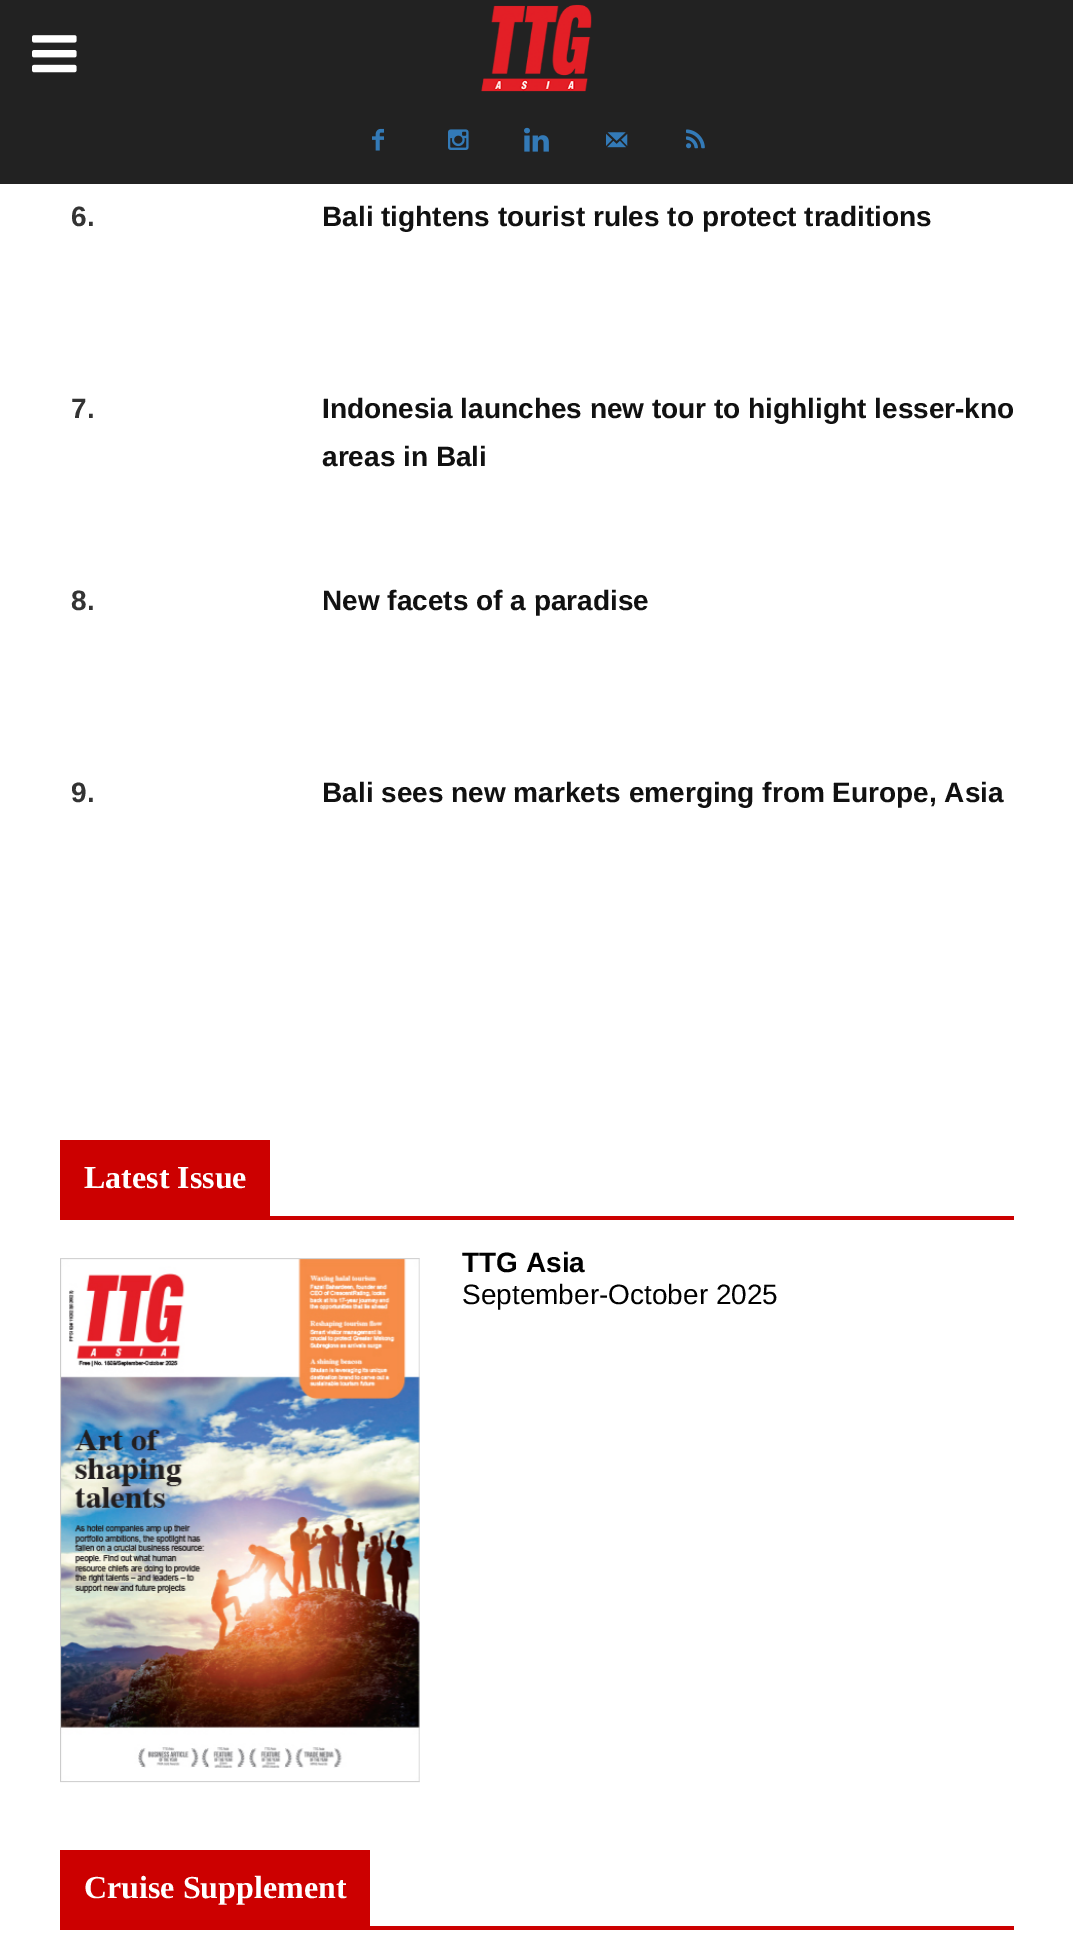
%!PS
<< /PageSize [1073 1934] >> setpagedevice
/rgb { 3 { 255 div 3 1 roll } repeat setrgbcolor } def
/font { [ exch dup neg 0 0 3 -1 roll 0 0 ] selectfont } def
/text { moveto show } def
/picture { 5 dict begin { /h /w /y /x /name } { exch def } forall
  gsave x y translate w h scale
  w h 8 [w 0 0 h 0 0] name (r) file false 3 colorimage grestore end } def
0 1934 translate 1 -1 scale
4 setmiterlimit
255 255 255 rgb
0 0 1073 1934 rectfill
34 34 34 rgb
0 0 1073 184 rectfill
(img_01.rgb) 32 35 45 38 picture
(img_02.rgb) 481 4 111 88 picture
(img_03.rgb) 372 128 12 23 picture
(img_04.rgb) 448 129 21 21 picture
(img_05.rgb) 524 127 25 25 picture
(img_06.rgb) 606 132 22 16 picture
(img_07.rgb) 686 129 19 20 picture
204 0 0 rgb
60 1216 954 4 rectfill
60 1140 210 76 rectfill
(img_08.rgb) 60 1258 360 525 picture
60 1926 954 4 rectfill
60 1850 310 76 rectfill
/LiberationSans-Bold 28 font
51 51 51 rgb
(6.) 71 226 text
17 17 17 rgb
(Bali tightens tourist rules to protect traditions) 322 226 text
51 51 51 rgb
(7.) 71 418 text
17 17 17 rgb
(Indonesia launches new tour to highlight lesser-kno) 322 418 text
(areas in Bali) 322 466 text
51 51 51 rgb
(8.) 71 610 text
17 17 17 rgb
(New facets of a paradise) 322 610 text
51 51 51 rgb
(9.) 71 802 text
17 17 17 rgb
(Bali sees new markets emerging from Europe, Asia) 322 802 text
/LiberationSerif-Bold 32 font
255 255 255 rgb
(Latest Issue) 84 1188 text
/LiberationSans-Bold 28 font
0 0 0 rgb
(TTG Asia) 462 1272 text
/LiberationSans-Regular 28 font
(September-October 2025) 462 1304 text
/LiberationSerif-Bold 32 font
255 255 255 rgb
(Cruise Supplement) 84 1898 text
showpage
